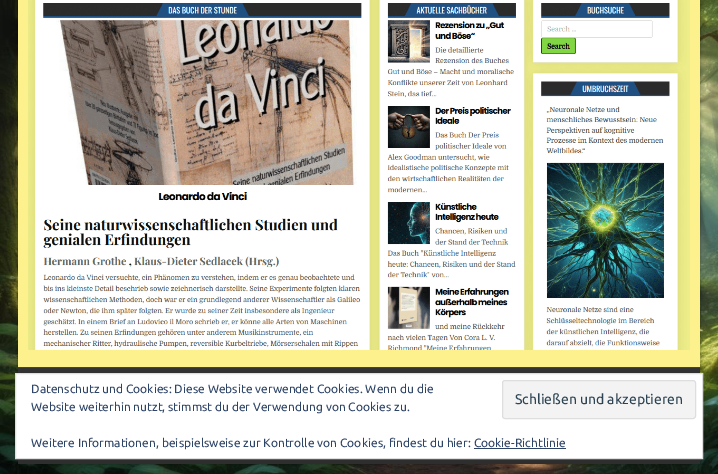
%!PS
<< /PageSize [718 474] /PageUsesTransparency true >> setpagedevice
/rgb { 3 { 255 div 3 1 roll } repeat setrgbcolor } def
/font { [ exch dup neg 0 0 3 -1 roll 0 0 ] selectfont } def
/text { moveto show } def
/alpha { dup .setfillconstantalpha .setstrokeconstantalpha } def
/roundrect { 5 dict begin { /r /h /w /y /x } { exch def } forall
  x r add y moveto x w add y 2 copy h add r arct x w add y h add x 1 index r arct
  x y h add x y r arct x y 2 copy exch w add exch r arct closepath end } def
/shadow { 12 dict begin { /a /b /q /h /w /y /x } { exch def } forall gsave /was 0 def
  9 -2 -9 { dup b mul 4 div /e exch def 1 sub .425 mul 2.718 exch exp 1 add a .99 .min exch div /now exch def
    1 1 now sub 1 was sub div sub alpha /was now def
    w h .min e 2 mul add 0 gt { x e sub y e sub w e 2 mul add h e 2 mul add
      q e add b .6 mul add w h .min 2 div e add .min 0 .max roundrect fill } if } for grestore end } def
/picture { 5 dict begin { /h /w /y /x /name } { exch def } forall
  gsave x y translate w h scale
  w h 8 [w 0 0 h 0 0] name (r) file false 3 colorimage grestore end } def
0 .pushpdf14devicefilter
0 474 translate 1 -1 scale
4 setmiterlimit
255 255 255 rgb
0 0 718 474 rectfill
(img_01.rgb) 0 0 718 474 picture
0 0 0 rgb
18 -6 682 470 0 2 0.35 shadow
252 241 141 rgb
18 0 682 367 rectfill
(img_02.rgb) 28 0 662 350 picture
51 51 51 rgb
18 368 682 5 rectfill
68 68 68 rgb
18 367 682 1 rectfill
46 46 46 rgb
18 459 682 5 rectfill
255 255 255 rgb
15.5 373.5 moveto 687 0 rlineto 0 85 rlineto -687 0 rlineto closepath gsave fill grestore
222 222 222 rgb
stroke
243 243 243 rgb
502.5 380.5 193 38 2.5 roundrect gsave fill grestore
222 222 222 rgb
stroke
46 68 103 rgb
474 448 92 1 rectfill
/Ubuntu-Regular 12 font
(Datenschutz und Cookies: Diese Website verwendet Cookies. Wenn du die) 31 393 text
(Website weiterhin nutzt, stimmst du der Verwendung von Cookies zu.) 31 411 text
/Ubuntu-Regular 14 font
46 68 83 rgb
(Schließen und akzeptieren) 515 404 text
/Ubuntu-Regular 12 font
46 68 103 rgb
(Weitere Informationen, beispielsweise zur Kontrolle von Cookies, findest du hier: Cookie-Richtlinie) 31 447 text
.poppdf14devicefilter showpage
